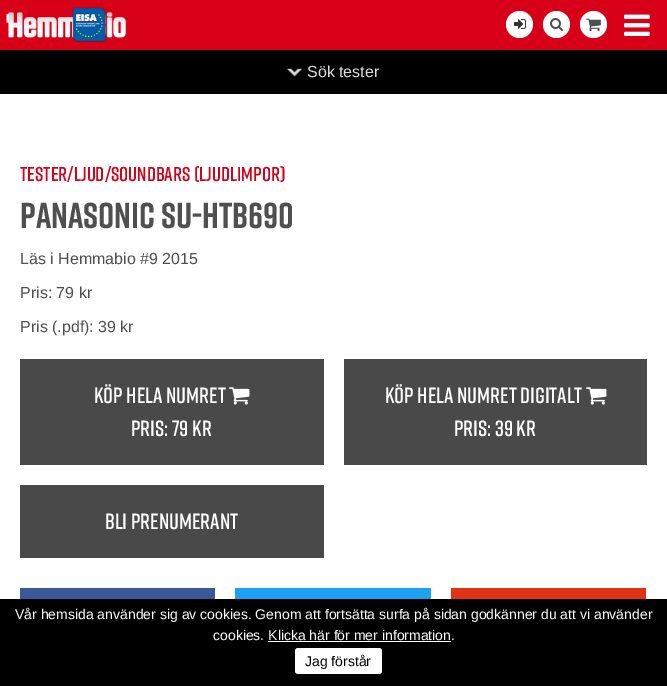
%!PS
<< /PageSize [667 686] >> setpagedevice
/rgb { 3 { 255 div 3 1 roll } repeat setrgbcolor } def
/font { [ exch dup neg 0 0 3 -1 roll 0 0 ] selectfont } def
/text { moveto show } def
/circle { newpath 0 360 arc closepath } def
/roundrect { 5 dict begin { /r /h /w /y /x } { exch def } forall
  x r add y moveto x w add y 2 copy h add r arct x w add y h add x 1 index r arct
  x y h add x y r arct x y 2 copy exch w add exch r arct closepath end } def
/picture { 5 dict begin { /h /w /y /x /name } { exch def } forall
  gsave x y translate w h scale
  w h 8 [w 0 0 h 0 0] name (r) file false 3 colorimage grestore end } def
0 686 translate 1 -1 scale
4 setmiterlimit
255 255 255 rgb
0 0 667 686 rectfill
216 0 25 rgb
0 0 667 50 rectfill
(img_05.rgb) 6 12 121 26 picture
(img_01.rgb) 72 7 34 35 picture
255 255 255 rgb
519.5 24.5 13.5 circle fill
(img_02.rgb) 514 19 12 10 picture
556.5 24.5 13.5 circle fill
(img_03.rgb) 550 18 13 13 picture
593.5 24.5 13.5 circle fill
(img_04.rgb) 586 18 15 14 picture
(img_06.rgb) 624 14 26 22 picture
0 0 0 rgb
0 50 667 44 rectfill
(img_07.rgb) 287 68 15 9 picture
73 73 73 rgb
20 359 304 106 rectfill
(img_08.rgb) 229 387 21 18 picture
344 359 303 106 rectfill
(img_08.rgb) 586 387 21 18 picture
20 485 304 73 rectfill
59 88 153 rgb
20 588 195 11 rectfill
29 161 243 rgb
235 588 196 11 rectfill
225 50 21 rgb
451 588 195 11 rectfill
0 0 0 rgb
0 599 667 87 rectfill
255 255 255 rgb
268 641 183 1 rectfill
295 648 87 26 3 roundrect fill
/LiberationSans-Regular 16 font
221 221 221 rgb
(Sök tester) 307 77 text
/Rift-SemiBold 20 font
216 0 25 rgb
(Tester/Ljud/Soundbars \(Ljudlimpor\)) 20 181 text
/Rift-Bold 36 font
79 79 79 rgb
(panasonic su-htb690) 20 228 text
/LiberationSans-Regular 16 font
(Läs i Hemmabio #9 2015) 20 264 text
(Pris: 79 kr) 20 298 text
(Pris \(.pdf\): 39 kr) 20 332 text
/Rift-SemiBold 22 font
255 255 255 rgb
(Köp hela numret) 94 403 text
(Pris: 79 kr) 131 436 text
(Köp hela numret digitalt) 385 403 text
(Pris: 39 kr) 454 436 text
(Bli prenumerant) 105 529 text
/LiberationSans-Regular 14 font
(Vår hemsida använder sig av cookies. Genom att fortsätta surfa på sidan godkänner du att vi använder) 15 619 text
(cookies. Klicka här för mer information.) 213 640 text
0 0 0 rgb
(Jag förstår) 305 666 text
showpage
